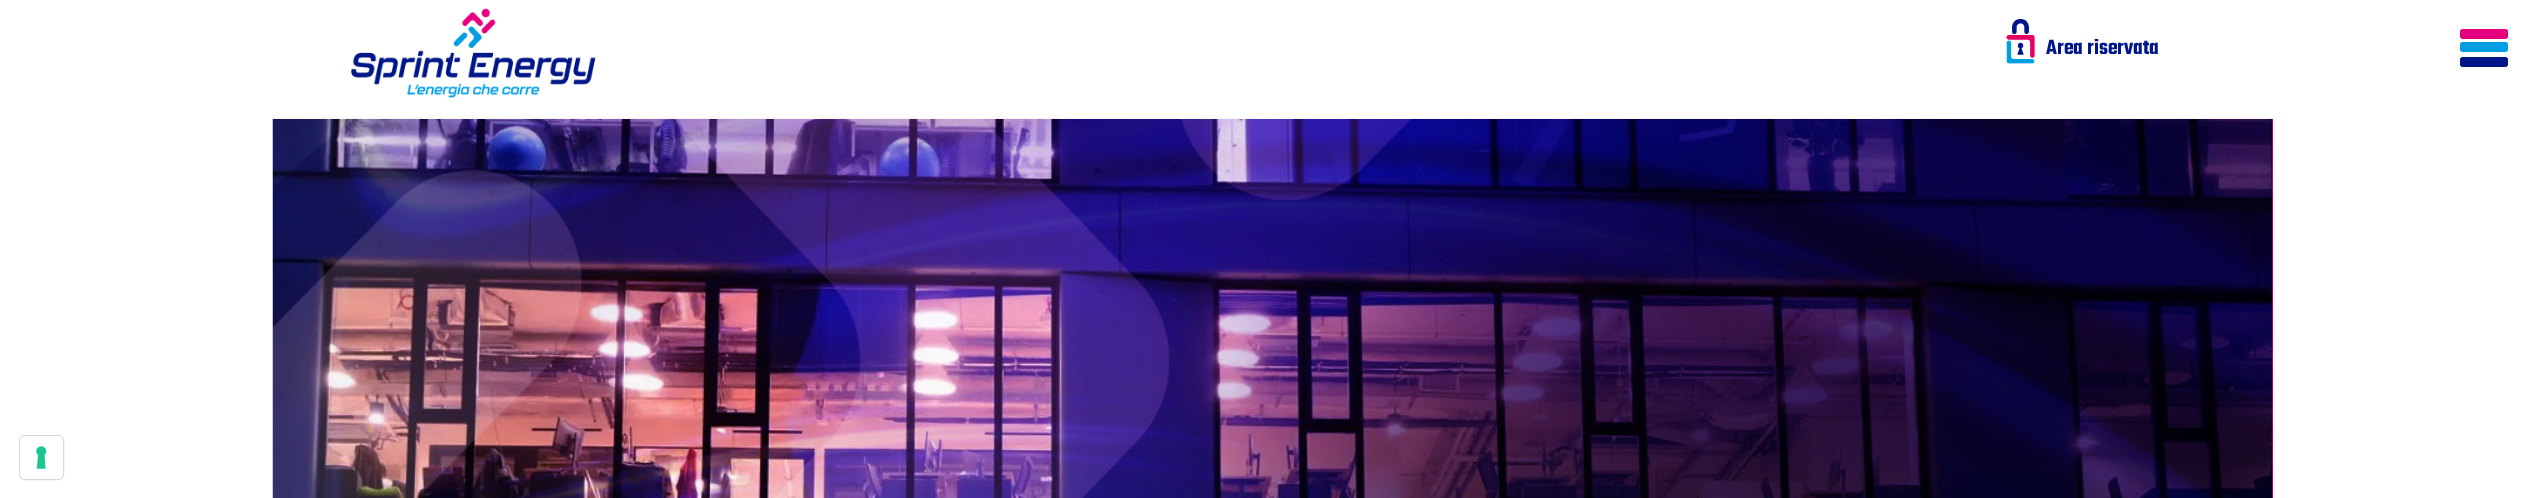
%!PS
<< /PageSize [2543 498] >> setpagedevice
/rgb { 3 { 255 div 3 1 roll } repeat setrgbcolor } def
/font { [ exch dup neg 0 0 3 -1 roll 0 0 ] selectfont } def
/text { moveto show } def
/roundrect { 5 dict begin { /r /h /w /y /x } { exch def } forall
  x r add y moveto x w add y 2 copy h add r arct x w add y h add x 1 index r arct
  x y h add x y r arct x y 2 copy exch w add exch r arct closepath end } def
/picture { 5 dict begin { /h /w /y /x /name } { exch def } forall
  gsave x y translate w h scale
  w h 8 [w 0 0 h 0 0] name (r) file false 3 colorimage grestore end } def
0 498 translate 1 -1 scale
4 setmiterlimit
255 255 255 rgb
0 0 2543 498 rectfill
229 0 126 rgb
2272 119 1 379 rectfill
(img_03.rgb) 272 118 2001 380 picture
249 245 244 rgb
273 118 2000 1 rectfill
(img_01.rgb) 351 8 245 90 picture
(img_02.rgb) 2006 19 29 45 picture
229 0 126 rgb
2460 29 48 10 3 roundrect fill
0 158 226 rgb
2460 42 48 10 3 roundrect fill
0 22 137 rgb
2460 57 48 10 3 roundrect fill
217 217 217 rgb
19.5 435.5 44 44 5.5 roundrect stroke
255 255 255 rgb
20 436 43 43 5 roundrect fill
(img_04.rgb) 36 446 11 23 picture
/Teko-SemiBold 22.5 font
0 22 137 rgb
(Area riservata) 2046 54 text
showpage
